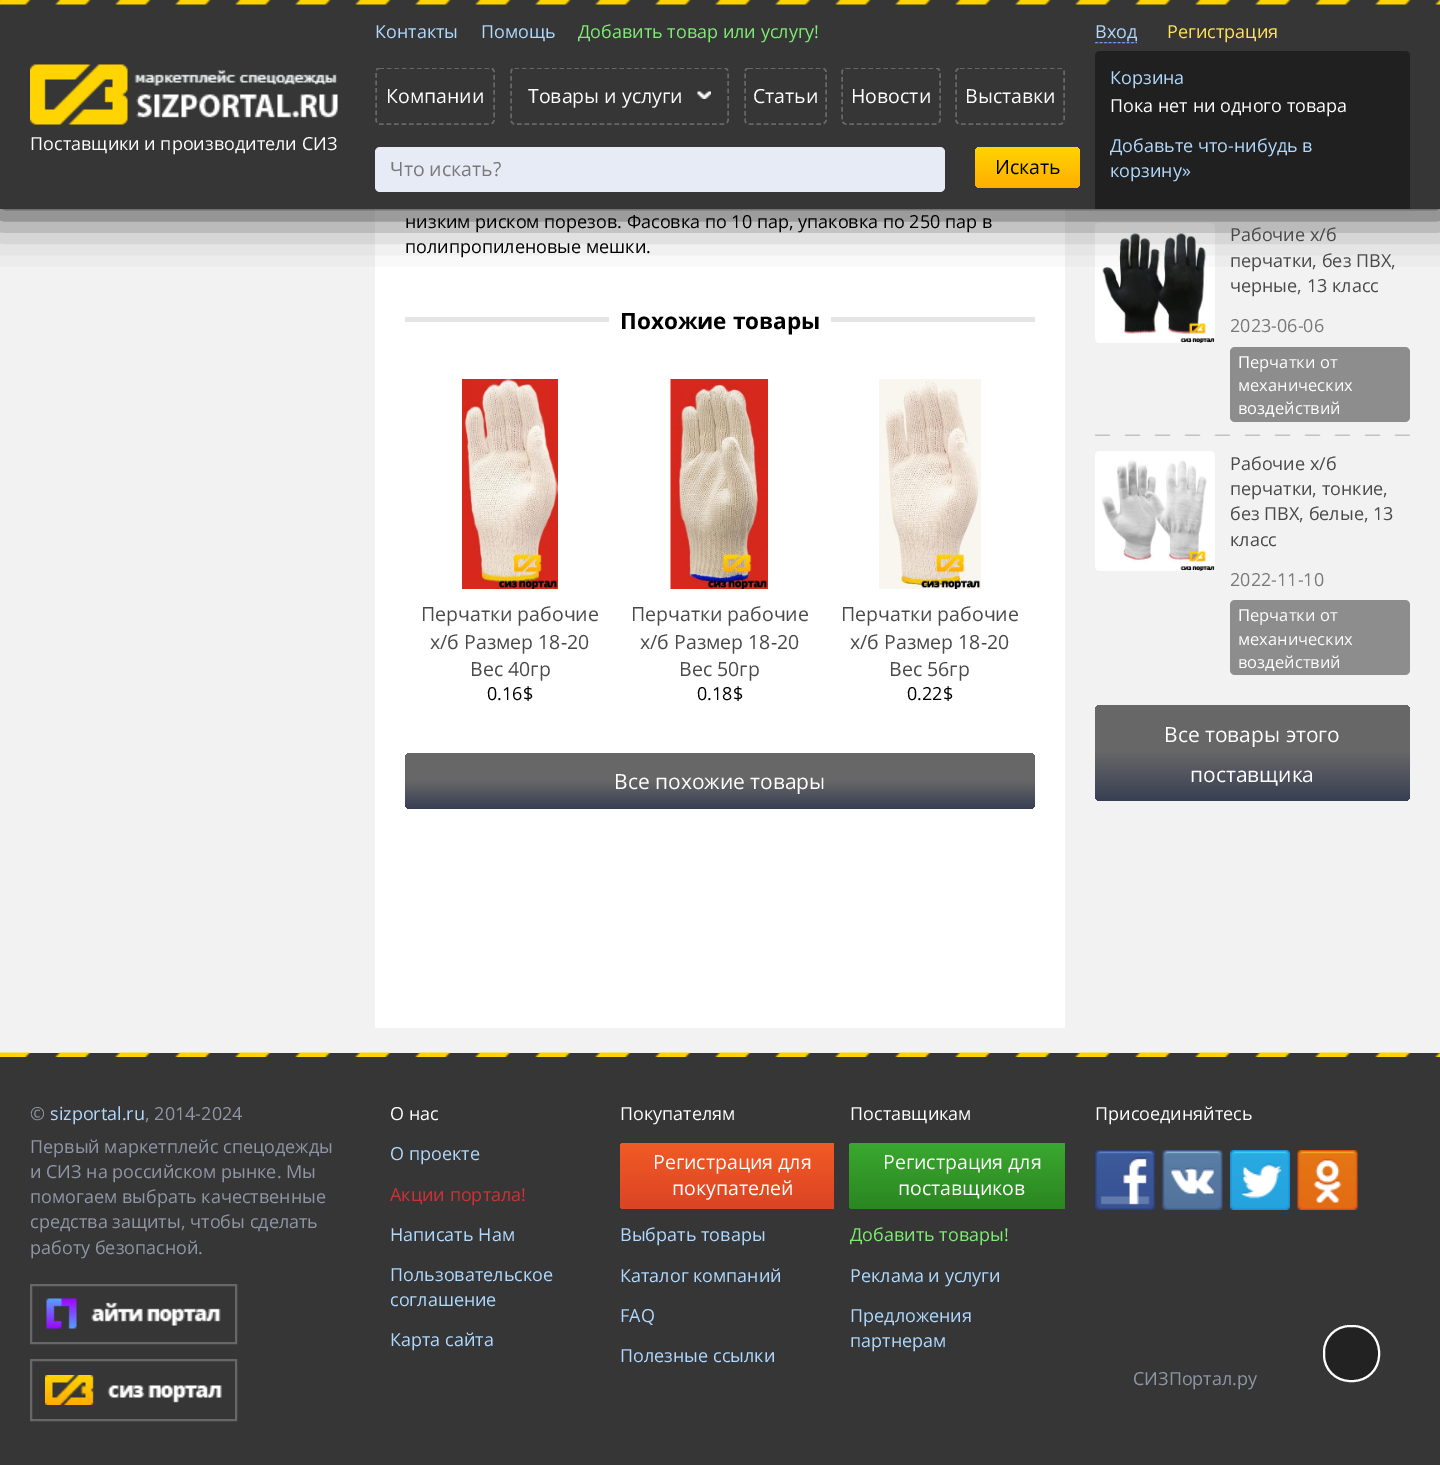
%!PS
<< /PageSize [1440 1465] /PageUsesTransparency true >> setpagedevice
/rgb { 3 { 255 div 3 1 roll } repeat setrgbcolor } def
/font { [ exch dup neg 0 0 3 -1 roll 0 0 ] selectfont } def
/text { moveto show } def
/alpha { dup .setfillconstantalpha .setstrokeconstantalpha } def
/roundrect { 5 dict begin { /r /h /w /y /x } { exch def } forall
  x r add y moveto x w add y 2 copy h add r arct x w add y h add x 1 index r arct
  x y h add x y r arct x y 2 copy exch w add exch r arct closepath end } def
/shadow { 12 dict begin { /a /b /q /h /w /y /x } { exch def } forall gsave /was 0 def
  9 -2 -9 { dup b mul 4 div /e exch def 1 sub .425 mul 2.718 exch exp 1 add a .99 .min exch div /now exch def
    1 1 now sub 1 was sub div sub alpha /was now def
    w h .min e 2 mul add 0 gt { x e sub y e sub w e 2 mul add h e 2 mul add
      q e add b .6 mul add w h .min 2 div e add .min 0 .max roundrect fill } if } for grestore end } def
/picture { 5 dict begin { /h /w /y /x /name } { exch def } forall
  gsave x y translate w h scale
  w h 8 [w 0 0 h 0 0] name (r) file false 3 colorimage grestore end } def
0 .pushpdf14devicefilter
0 1465 translate 1 -1 scale
4 setmiterlimit
242 242 242 rgb
0 0 1440 1465 rectfill
255 255 255 rgb
375 209 690 819 rectfill
(img_09.rgb) 1095 223 120 120 picture
54 54 54 rgb
-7 -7 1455 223 0 22.5 1 shadow
0 0 1440 209 rectfill
(img_01.rgb) 0 0 1440 5 picture
(img_02.rgb) 30 64 308 61 picture
gsave
375 68 690 57 rectclip
103 103 103 rgb
1.5 setlinewidth
[4.5 3] 0 setdash
379.5 68 moveto 111 0 rlineto 2 0 3.5 2 3.5 4 rcurveto 0 48 rlineto 0 2 -1.5 4 -3.5 4 rcurveto -111 0 rlineto -2 0 -3.5 -2 -3.5 -4 rcurveto 0 -48 rlineto 0 -2 1.5 -4 3.5 -4 rcurveto closepath stroke
514.5 68 moveto 210 0 rlineto 2 0 3.5 2 3.5 4 rcurveto 0 48 rlineto 0 2 -1.5 4 -3.5 4 rcurveto -210 0 rlineto -2 0 -3.5 -2 -3.5 -4 rcurveto 0 -48 rlineto 0 -2 1.5 -4 3.5 -4 rcurveto closepath stroke
grestore
(img_03.rgb) 697 91 14 8 picture
gsave
375 68 690 57 rectclip
103 103 103 rgb
1.5 setlinewidth
[4.5 3] 0 setdash
748.5 68 moveto 73.5 0 rlineto 2 0 4 2 4 4 rcurveto 0 48 rlineto 0 2 -2 4 -4 4 rcurveto -73.5 0 rlineto -2 0 -3.5 -2 -3.5 -4 rcurveto 0 -48 rlineto 0 -2 1.5 -4 3.5 -4 rcurveto closepath stroke
846 68 moveto 90 0 rlineto 2 0 4 2 4 4 rcurveto 0 48 rlineto 0 2 -2 4 -4 4 rcurveto -90 0 rlineto -2 0 -4 -2 -4 -4 rcurveto 0 -48 rlineto 0 -2 2 -4 4 -4 rcurveto closepath stroke
960 68 moveto 100.5 0 rlineto 2 0 3.5 2 3.5 4 rcurveto 0 48 rlineto 0 2 -1.5 4 -3.5 4 rcurveto -100.5 0 rlineto -2 0 -4 -2 -4 -4 rcurveto 0 -48 rlineto 0 -2 2 -4 4 -4 rcurveto closepath stroke
grestore
230 235 245 rgb
375 147 570 45 5 roundrect fill
gsave 975 147 105 41 5 roundrect clip newpath
<< /ShadingType 2 /ColorSpace /DeviceRGB /Coords [1028 147 1028 188] /Extend [true true] /Function << /FunctionType 2 /Domain [0 1] /C0 [1 0.831 0] /C1 [1 0.682 0] /N 1 >> >> shfill grestore
(img_04.rgb) 1095 42 42 2 picture
32 32 32 rgb
1100 51 moveto 305 0 rlineto 3 0 5 2 5 5 rcurveto 0 153 rlineto -315 0 rlineto 0 -153 rlineto 0 -3 2 -5 5 -5 rcurveto closepath fill
229 229 229 rgb
405 317 630 5 rectfill
255 255 255 rgb
609 317 222 5 rectfill
(img_05.rgb) 462 379 96 210 picture
(img_06.rgb) 670 379 98 210 picture
(img_07.rgb) 879 379 102 210 picture
gsave 405 753 630 56 5 roundrect clip newpath
<< /ShadingType 2 /ColorSpace /DeviceRGB /Coords [720 753 720 809] /Extend [true true] /Function << /FunctionType 3 /Domain [0 1] /Functions [<< /FunctionType 2 /Domain [0 1] /C0 [0.404 0.404 0.404] /C1 [0.404 0.404 0.404] /N 1 >> << /FunctionType 2 /Domain [0 1] /C0 [0.404 0.404 0.404] /C1 [0.216 0.247 0.325] /N 1 >>] /Bounds [0.49] /Encode [0 1 0 1] >> >> shfill grestore
(img_08.rgb) 1095 434 315 2 picture
141 141 141 rgb
1230 347 180 75 5 roundrect fill
(img_10.rgb) 1095 451 120 120 picture
1230 600 180 75 5 roundrect fill
gsave 1095 705 315 96 5 roundrect clip newpath
<< /ShadingType 2 /ColorSpace /DeviceRGB /Coords [1253 705 1253 801] /Extend [true true] /Function << /FunctionType 3 /Domain [0 1] /Functions [<< /FunctionType 2 /Domain [0 1] /C0 [0.404 0.404 0.404] /C1 [0.404 0.404 0.404] /N 1 >> << /FunctionType 2 /Domain [0 1] /C0 [0.404 0.404 0.404] /C1 [0.216 0.247 0.325] /N 1 >>] /Bounds [0.49] /Encode [0 1 0 1] >> >> shfill grestore
54 54 54 rgb
0 1053 1440 412 rectfill
(img_11.rgb) 0 1052 1440 5 picture
103 103 103 rgb
2 setlinewidth
31 1285 205 58 rectstroke
(img_12.rgb) 46 1298 175 31 picture
31 1360 205 60 rectstroke
(img_13.rgb) 45 1375 177 30 picture
gsave 625 1143 moveto 209 0 rlineto 0 66 rlineto -209 0 rlineto -3 0 -5 -2 -5 -5 rcurveto 0 -56 rlineto 0 -3 2 -5 5 -5 rcurveto closepath clip newpath
<< /ShadingType 2 /ColorSpace /DeviceRGB /Coords [732 1143 732 1209] /Extend [true true] /Function << /FunctionType 2 /Domain [0 1] /C0 [0.945 0.357 0.141] /C1 [0.859 0.267 0.141] /N 1 >> >> shfill grestore
gsave 854 1143 moveto 211 0 rlineto 0 66 rlineto -211 0 rlineto -3 0 -5 -2 -5 -5 rcurveto 0 -56 rlineto 0 -3 2 -5 5 -5 rcurveto closepath clip newpath
<< /ShadingType 2 /ColorSpace /DeviceRGB /Coords [962 1143 962 1209] /Extend [true true] /Function << /FunctionType 2 /Domain [0 1] /C0 [0.227 0.659 0.184] /C1 [0.165 0.525 0.129] /N 1 >> >> shfill grestore
(img_14.rgb) 1095 1150 60 60 picture
(img_15.rgb) 1162 1150 61 60 picture
(img_16.rgb) 1230 1150 60 60 picture
(img_17.rgb) 1297 1150 61 60 picture
34 34 34 rgb
1324 1326 55 55 26 roundrect gsave fill grestore
255 255 255 rgb
stroke
/OpenSans-Regular 18 font
(Поставщики и производители СИЗ) 30 150 text
175 217 255 rgb
(Контакты) 375 38 text
(Помощь) 481 38 text
126 236 115 rgb
(Добавить товар или услугу!) 578 38 text
/OpenSans-Regular 19.5 font
255 255 255 rgb
(Компании) 386 103 text
(Товары и услуги) 528 103 text
(Статьи) 753 103 text
(Новости) 851 103 text
(Выставки) 965 103 text
121 121 121 rgb
(Что искать?) 390 176 text
0 0 0 rgb
(Искать) 995 174 text
/OpenSans-Regular 18 font
175 217 255 rgb
(Вход) 1095 38 text
255 226 86 rgb
(Регистрация) 1167 38 text
175 217 255 rgb
(Корзина) 1110 84 text
255 255 255 rgb
(Пока нет ни одного товара) 1110 112 text
175 217 255 rgb
(Добавьте что-нибудь в) 1110 152 text
(корзину») 1110 177 text
0 0 0 rgb
(низким риском порезов. Фасовка по 10 пар, упаковка по 250 пар в) 405 228 text
(полипропиленовые мешки.) 405 253 text
/OpenSans-Bold 22.5 font
(Похожие товары) 620 329 text
/OpenSans-Regular 19.5 font
73 73 73 rgb
(Перчатки рабочие) 421 621 text
(х/б Размер 18-20) 430 649 text
(Вес 40гр) 470 676 text
/OpenSans-Regular 18 font
0 0 0 rgb
(0.16$) 487 700 text
/OpenSans-Regular 19.5 font
73 73 73 rgb
(Перчатки рабочие) 631 621 text
(х/б Размер 18-20) 640 649 text
(Вес 50гр) 679 676 text
/OpenSans-Regular 18 font
0 0 0 rgb
(0.18$) 697 700 text
/OpenSans-Regular 19.5 font
73 73 73 rgb
(Перчатки рабочие) 841 621 text
(х/б Размер 18-20) 850 649 text
(Вес 56гр) 889 676 text
/OpenSans-Regular 18 font
0 0 0 rgb
(0.22$) 907 700 text
/OpenSans-Regular 21 font
255 255 255 rgb
(Все похожие товары) 614 789 text
/OpenSans-Regular 18 font
73 73 73 rgb
(Рабочие х/б) 1230 241 text
(перчатки, без ПВХ,) 1230 267 text
(черные, 13 класс) 1230 292 text
121 121 121 rgb
(2023-06-06) 1230 332 text
/OpenSans-Regular 16.5 font
255 255 255 rgb
(Перчатки от) 1238 368 text
(механических) 1238 391 text
(воздействий) 1238 414 text
/OpenSans-Regular 18 font
73 73 73 rgb
(Рабочие х/б) 1230 470 text
(перчатки, тонкие,) 1230 495 text
(без ПВХ, белые, 13) 1230 520 text
(класс) 1230 546 text
121 121 121 rgb
(2022-11-10) 1230 586 text
/OpenSans-Regular 16.5 font
255 255 255 rgb
(Перчатки от) 1238 621 text
(механических) 1238 645 text
(воздействий) 1238 668 text
/OpenSans-Regular 21 font
(Все товары этого) 1164 742 text
(поставщика) 1190 782 text
/OpenSans-Regular 18 font
142 149 165 rgb
(©) 30 1120 text
175 217 255 rgb
(sizportal.ru) 50 1120 text
142 149 165 rgb
(, 2014-2024) 145 1120 text
(Первый маркетплейс спецодежды) 30 1153 text
(и СИЗ на российском рынке. Мы) 30 1178 text
(помогаем выбрать качественные) 30 1203 text
(средства защиты, чтобы сделать) 30 1228 text
(работу безопасной.) 30 1254 text
255 255 255 rgb
(О нас) 390 1120 text
175 217 255 rgb
(О проекте) 390 1160 text
205 49 51 rgb
(Акции портала!) 390 1201 text
175 217 255 rgb
(Написать Нам) 390 1241 text
(Пользовательское) 390 1281 text
(соглашение) 390 1306 text
(Карта сайта) 390 1346 text
255 255 255 rgb
(Покупателям) 620 1120 text
/OpenSans-Regular 19.5 font
(Регистрация для) 653 1169 text
(покупателей) 672 1195 text
/OpenSans-Regular 18 font
175 217 255 rgb
(Выбрать товары) 620 1241 text
(Каталог компаний) 620 1282 text
(FAQ) 620 1322 text
(Полезные ссылки) 620 1362 text
255 255 255 rgb
(Поставщикам) 850 1120 text
/OpenSans-Regular 19.5 font
(Регистрация для) 883 1169 text
(поставщиков) 898 1195 text
/OpenSans-Regular 18 font
126 236 115 rgb
(Добавить товары!) 850 1241 text
175 217 255 rgb
(Реклама и услуги) 850 1282 text
(Предложения) 850 1322 text
(партнерам) 850 1347 text
255 255 255 rgb
(Присоединяйтесь) 1095 1120 text
142 149 165 rgb
(СИЗПортал.ру) 1133 1385 text
.poppdf14devicefilter showpage
